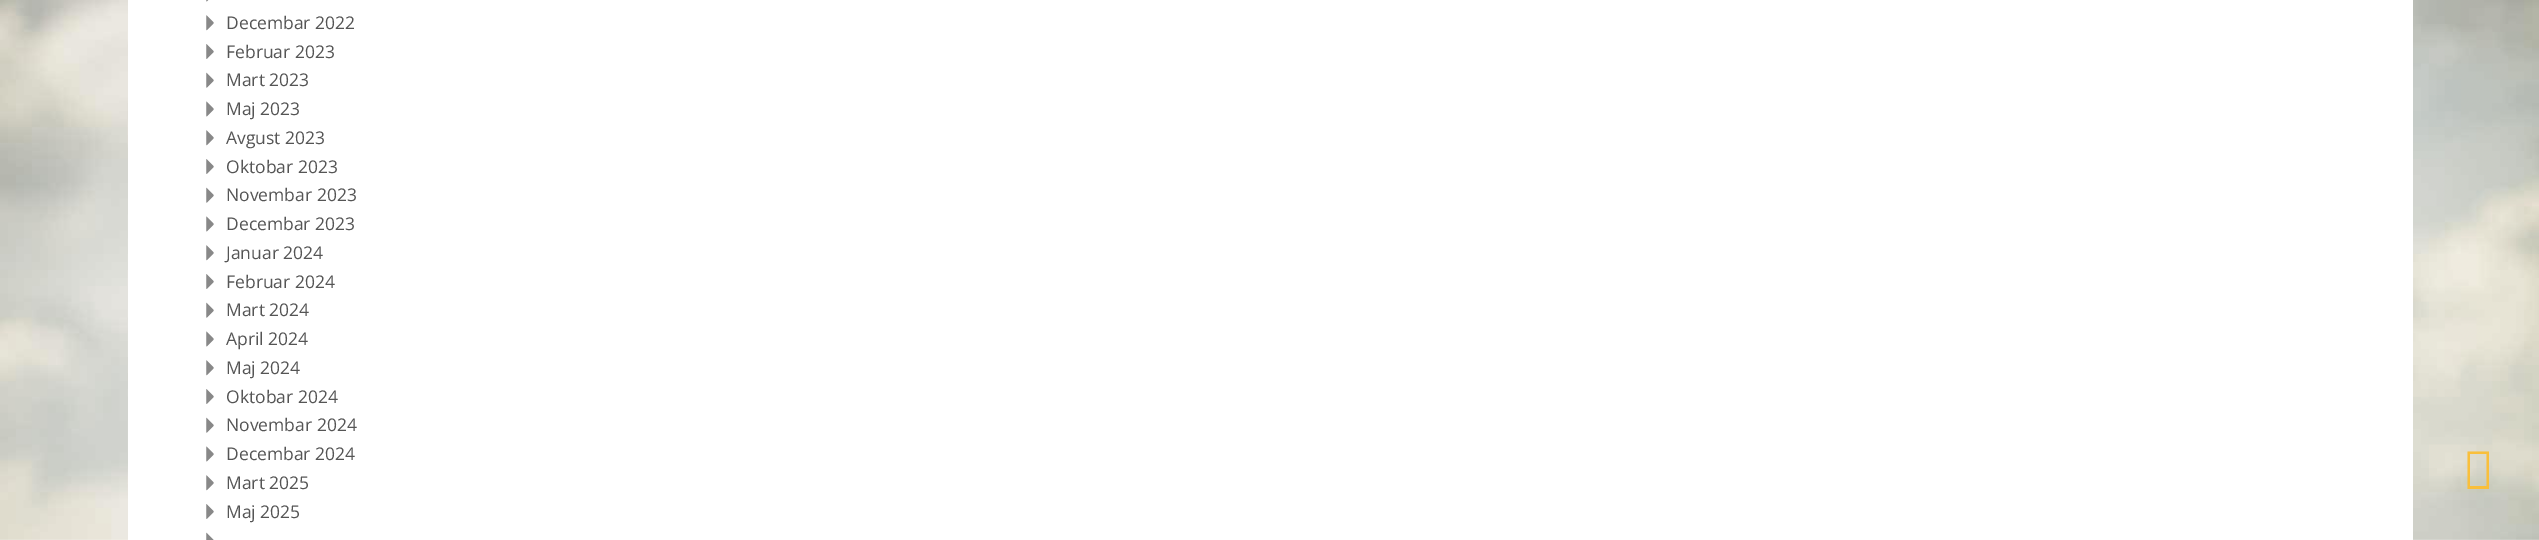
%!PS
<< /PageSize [2539 540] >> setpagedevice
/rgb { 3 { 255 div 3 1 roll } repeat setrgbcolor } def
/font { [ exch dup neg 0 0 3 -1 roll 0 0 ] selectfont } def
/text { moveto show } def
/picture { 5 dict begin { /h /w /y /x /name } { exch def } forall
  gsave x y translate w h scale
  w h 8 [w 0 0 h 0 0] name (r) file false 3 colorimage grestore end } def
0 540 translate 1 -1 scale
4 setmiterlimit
255 255 255 rgb
0 0 2539 540 rectfill
(img_01.rgb) 0 0 2539 540 picture
128 0 2285 540 rectfill
(img_02.rgb) 206 0 3 2 picture
(img_03.rgb) 206 15 8 16 picture
(img_04.rgb) 206 44 8 15 picture
(img_05.rgb) 206 72 8 16 picture
(img_06.rgb) 206 101 8 16 picture
(img_03.rgb) 206 130 8 16 picture
(img_07.rgb) 206 159 8 15 picture
(img_05.rgb) 206 187 8 16 picture
(img_06.rgb) 206 216 8 16 picture
(img_03.rgb) 206 245 8 16 picture
(img_07.rgb) 206 274 8 15 picture
(img_08.rgb) 206 302 8 16 picture
(img_06.rgb) 206 331 8 16 picture
(img_03.rgb) 206 360 8 16 picture
(img_07.rgb) 206 389 8 15 picture
(img_05.rgb) 206 417 8 16 picture
(img_06.rgb) 206 446 8 16 picture
(img_03.rgb) 206 475 8 16 picture
(img_07.rgb) 206 504 8 15 picture
(img_09.rgb) 206 532 8 8 picture
249 191 59 rgb
2467.5 489 moveto 0 -37.5 rlineto 21.5 0 rlineto 0 37.5 rlineto closepath 2470 486 moveto 16.5 0 rlineto 0 -32 rlineto -16.5 0 rlineto closepath fill
/OpenSans-Regular 17.5 font
85 85 85 rgb
(Decembar 2022) 226 29 text
(Februar 2023) 226 58 text
(Mart 2023) 226 86 text
(Maj 2023) 226 115 text
(Avgust 2023) 226 144 text
(Oktobar 2023) 226 173 text
(Novembar 2023) 226 201 text
(Decembar 2023) 226 230 text
(Januar 2024) 226 259 text
(Februar 2024) 226 288 text
(Mart 2024) 226 316 text
(April 2024) 226 345 text
(Maj 2024) 226 374 text
(Oktobar 2024) 226 403 text
(Novembar 2024) 226 431 text
(Decembar 2024) 226 460 text
(Mart 2025) 226 489 text
(Maj 2025) 226 518 text
showpage
